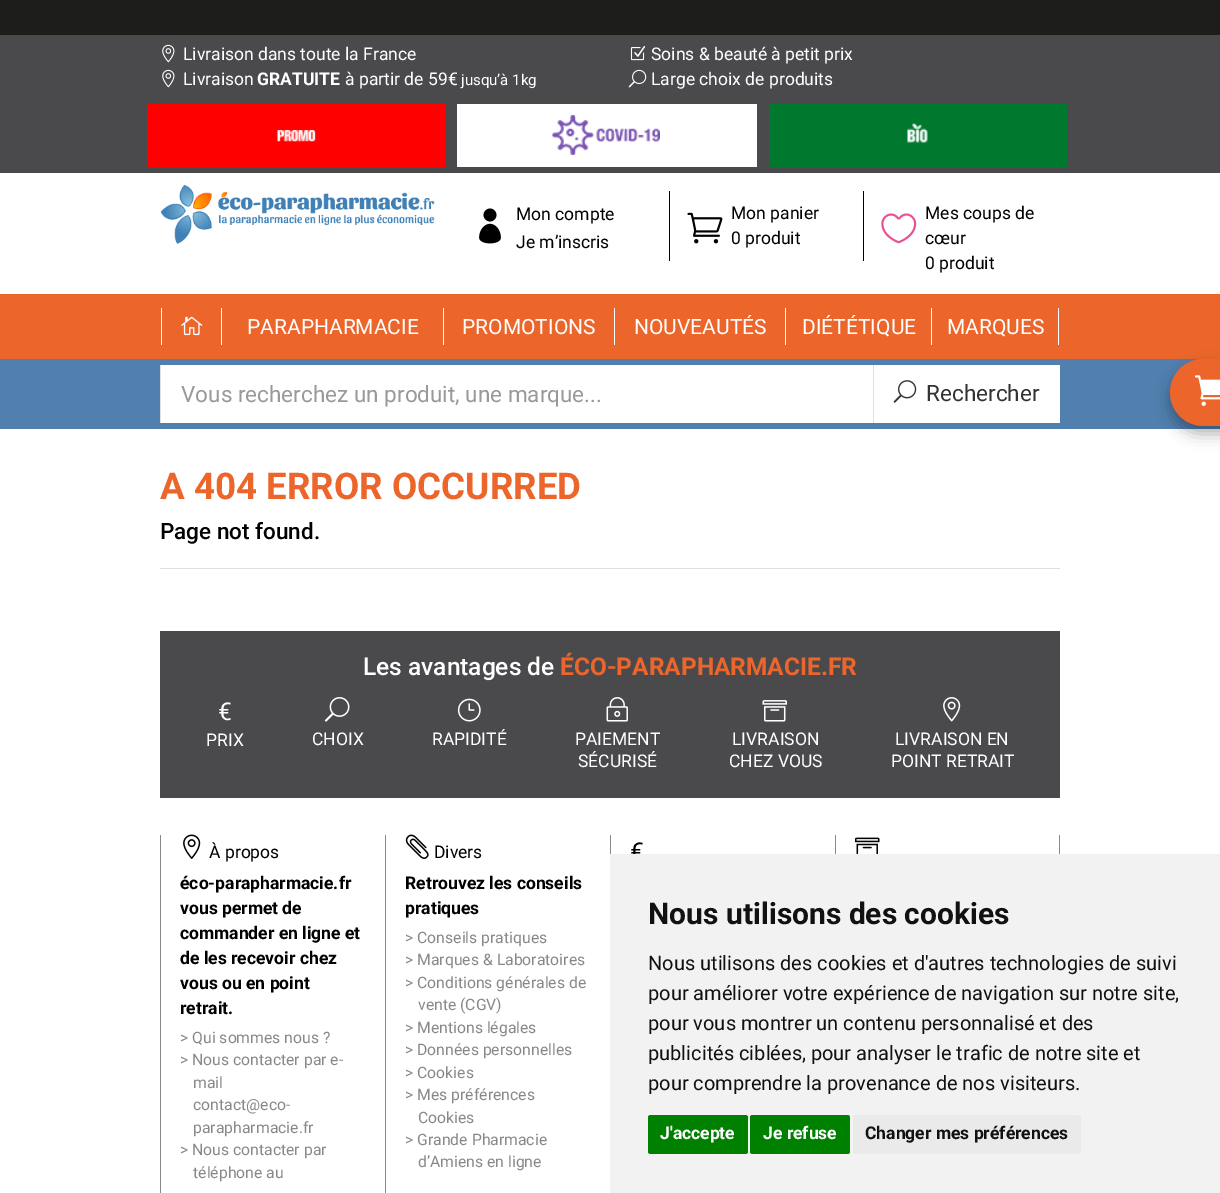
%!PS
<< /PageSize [1220 1193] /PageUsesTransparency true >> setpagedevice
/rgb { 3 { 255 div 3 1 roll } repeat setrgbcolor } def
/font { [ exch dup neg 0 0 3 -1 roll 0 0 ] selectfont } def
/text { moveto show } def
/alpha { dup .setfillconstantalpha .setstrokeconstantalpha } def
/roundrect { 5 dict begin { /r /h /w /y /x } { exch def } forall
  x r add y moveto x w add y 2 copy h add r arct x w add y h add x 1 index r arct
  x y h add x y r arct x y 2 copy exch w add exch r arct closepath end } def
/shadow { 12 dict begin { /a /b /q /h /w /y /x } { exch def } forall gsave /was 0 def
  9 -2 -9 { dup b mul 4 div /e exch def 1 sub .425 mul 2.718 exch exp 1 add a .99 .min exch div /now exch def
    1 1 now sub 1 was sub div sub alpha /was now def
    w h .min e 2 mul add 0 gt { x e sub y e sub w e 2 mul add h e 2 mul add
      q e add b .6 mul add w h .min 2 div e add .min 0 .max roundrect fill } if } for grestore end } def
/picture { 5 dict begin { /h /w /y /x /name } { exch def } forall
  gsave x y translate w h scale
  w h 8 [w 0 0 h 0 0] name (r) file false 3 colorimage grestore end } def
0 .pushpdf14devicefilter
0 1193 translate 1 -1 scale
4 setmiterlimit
255 255 255 rgb
0 0 1220 1193 rectfill
29 29 27 rgb
0 0 1220 35 rectfill
74 74 76 rgb
0 35 1220 138 rectfill
(img_01.rgb) 162 44 13 19 picture
(img_01.rgb) 162 69 13 19 picture
(img_02.rgb) 630 46 16 15 picture
(img_03.rgb) 628 69 19 19 picture
255 0 0 rgb
147 104 298 63 rectfill
(img_04.rgb) 277 130 39 12 picture
255 255 255 rgb
457 104 300 63 rectfill
(img_05.rgb) 552 115 108 40 picture
0 121 47 rgb
769 104 298 63 rectfill
(img_06.rgb) 907 123 21 20 picture
(img_07.rgb) 160 185 275 59 picture
(img_08.rgb) 479 208 22 36 picture
0 0 0 rgb
863 191 1 70 rectfill
669 191 1 70 rectfill
(img_09.rgb) 687 212 36 32 picture
(img_10.rgb) 881 213 36 31 picture
236 102 44 rgb
0 294 1220 65 rectfill
255 255 255 rgb
221 308 1 37 rectfill
161 308 1 37 rectfill
(img_11.rgb) 181 316 22 20 picture
443 308 1 37 rectfill
614 308 1 37 rectfill
785 308 1 37 rectfill
931 308 1 37 rectfill
1058 308 1 37 rectfill
81 127 174 rgb
0 359 1220 70 rectfill
255 255 255 rgb
161 365 712 58 rectfill
160 421 714 1 rectfill
223 223 223 rgb
160 365 1 58 rectfill
255 255 255 rgb
874 365 186 58 rectfill
223 223 223 rgb
873 365 1 58 rectfill
(img_12.rgb) 893 380 24 23 picture
0 0 0 rgb
1170 366 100 68 34 7.5 0.3 shadow
236 102 44 rgb
1203.5 359 moveto 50.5 0 rlineto 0 67 rlineto -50.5 0 rlineto -18.5 0 -33.5 -15 -33.5 -33.5 rcurveto 0 -18.5 15 -33.5 33.5 -33.5 rcurveto closepath fill
(img_13.rgb) 1195 375 25 31 picture
223 223 223 rgb
160 568 900 1 rectfill
74 74 76 rgb
160 631 900 167 rectfill
(img_14.rgb) 324 697 26 25 picture
(img_15.rgb) 457 698 24 24 picture
(img_16.rgb) 606 697 22 25 picture
(img_17.rgb) 762 700 25 22 picture
(img_18.rgb) 943 697 18 25 picture
136 136 136 rgb
160 835 1 358 rectfill
(img_19.rgb) 183 834 18 25 picture
385 835 1 358 rectfill
(img_20.rgb) 405 834 24 25 picture
610 835 1 19 rectfill
1059 835 1 19 rectfill
835 835 1 19 rectfill
(img_21.rgb) 855 837 25 17 picture
/Roboto-Regular 17.5 font
255 255 255 rgb
(Livraison dans toute la France) 183 60 text
(Livraison) 183 85 text
/Roboto-Bold 17.5 font
(GRATUITE) 257 85 text
/Roboto-Regular 17.5 font
(à partir de 59€) 345 85 text
/Roboto-Regular 15 font
(jusqu’à 1kg) 461 85 text
/Roboto-Regular 17.5 font
(Soins & beauté à petit prix) 651 60 text
(Large choix de produits) 651 85 text
0 0 0 rgb
(Mon compte) 516 220 text
(Je m’inscris) 516 248 text
(Mon panier) 731 219 text
(0 produit) 731 244 text
(Mes coups de) 925 219 text
(cœur) 925 244 text
(0 produit) 925 269 text
/Roboto-Regular 21 font
255 255 255 rgb
(PARAPHARMACIE) 247 334 text
(PROMOTIONS) 462 334 text
(NOUVEAUTÉS) 634 334 text
(DIÉTÉTIQUE) 802 334 text
(MARQUES) 947 334 text
/Roboto-Regular 22.5 font
153 153 153 rgb
(Vous recherchez un produit, une marque...) 181 402 text
51 51 51 rgb
(Rechercher) 926 401 text
/Roboto-Bold 36.75 font
236 102 44 rgb
(A 404 ERROR OCCURRED) 160 499 text
/Roboto-Medium 22.5 font
0 0 0 rgb
(Page not found.) 160 539 text
/Roboto-Medium 24.5 font
255 255 255 rgb
(Les avantages de) 363 675 text
/Roboto-Bold 24.5 font
236 102 44 rgb
(ÉCO-PARAPHARMACIE.FR) 560 675 text
/Roboto-Regular 24.5 font
255 255 255 rgb
(€) 218 720 text
/Roboto-Regular 17.5 font
(PRIX) 206 746 text
(CHOIX) 312 745 text
(RAPIDITÉ) 432 745 text
(PAIEMENT) 575 745 text
(SÉCURISÉ) 578 767 text
(LIVRAISON) 732 745 text
(CHEZ VOUS) 729 767 text
(LIVRAISON EN) 895 745 text
(POINT RETRAIT) 891 767 text
0 0 0 rgb
(À propos) 209 858 text
/Roboto-Bold 17.5 font
(éco-parapharmacie.fr) 180 889 text
(vous permet de) 180 914 text
(commander en ligne et) 180 939 text
(de les recevoir chez) 180 964 text
(vous ou en point) 180 989 text
(retrait.) 180 1014 text
/Roboto-Regular 15.75 font
136 136 136 rgb
(> Qui sommes nous ?) 180 1043 text
(> Nous contacter par e-) 180 1065 text
(mail) 193 1088 text
(contact@eco-) 193 1110 text
(parapharmacie.fr) 193 1133 text
(> Nous contacter par) 180 1155 text
(téléphone au) 193 1178 text
/Roboto-Regular 17.5 font
0 0 0 rgb
(Divers) 434 858 text
/Roboto-Bold 17.5 font
(Retrouvez les conseils) 405 889 text
(pratiques) 405 914 text
/Roboto-Regular 15.75 font
136 136 136 rgb
(> Conseils pratiques) 405 943 text
(> Marques & Laboratoires) 405 965 text
(> Conditions générales de) 405 988 text
(vente \(CGV\)) 418 1010 text
(> Mentions légales) 405 1033 text
(> Données personnelles) 405 1055 text
(> Cookies) 405 1078 text
(> Mes préférences) 405 1100 text
(Cookies) 418 1123 text
(> Grande Pharmacie) 405 1145 text
(d’Amiens en ligne) 418 1167 text
/Roboto-Regular 24.5 font
0 0 0 rgb
(€) 630 860 text
242 242 242 rgb
610 854 610 339 rectfill
/Roboto-Bold 30 font
17 17 17 rgb
(Nous utilisons des cookies) 648 924 text
/Roboto-Regular 20 font
(Nous utilisons des cookies et d'autres technologies de suivi) 648 970 text
(pour améliorer votre expérience de navigation sur notre site,) 648 1000 text
(pour vous montrer un contenu personnalisé et des) 648 1030 text
(publicités ciblées, pour analyser le trafic de notre site et) 648 1060 text
(pour comprendre la provenance de nos visiteurs.) 648 1090 text
0 128 0 rgb
648 1115 100 39 2.5 roundrect fill
/Roboto-Bold 17.5 font
255 255 255 rgb
(J'accepte) 660 1139 text
0 128 0 rgb
750 1115 100 39 2.5 roundrect fill
255 255 255 rgb
(Je refuse) 763 1139 text
234 234 234 rgb
853 1115 228 39 2.5 roundrect fill
17 17 17 rgb
(Changer mes préférences) 865 1139 text
.poppdf14devicefilter showpage
